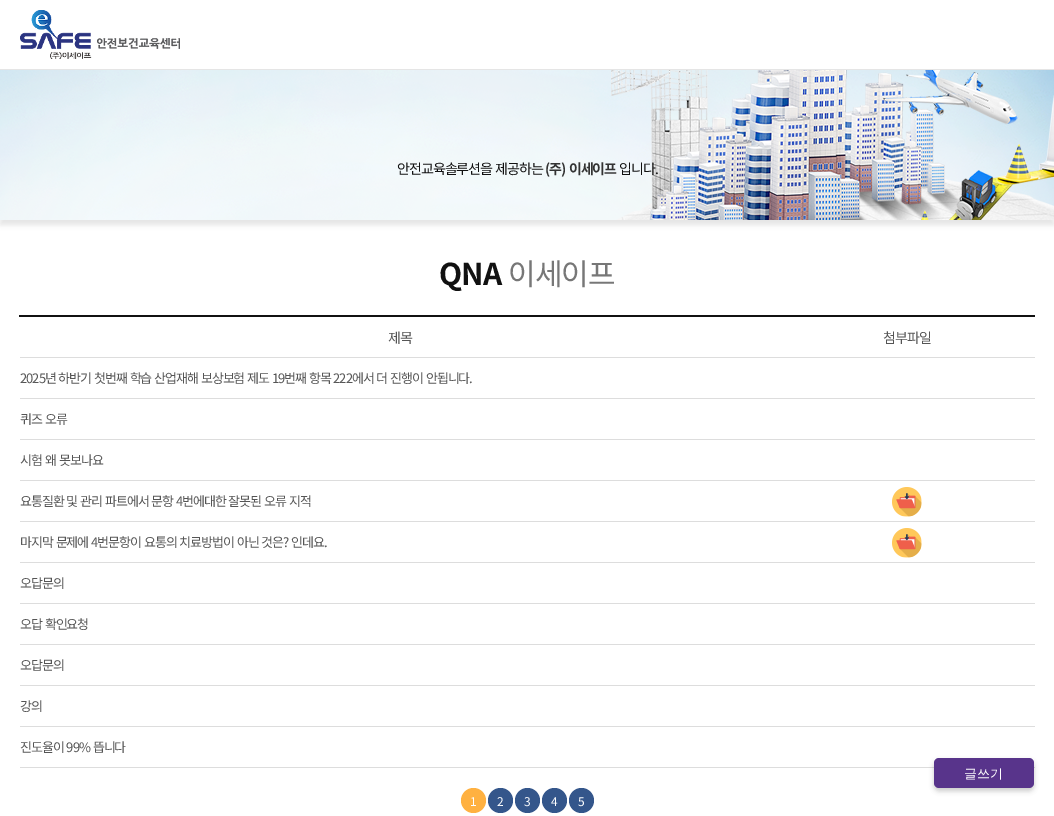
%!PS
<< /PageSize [1054 816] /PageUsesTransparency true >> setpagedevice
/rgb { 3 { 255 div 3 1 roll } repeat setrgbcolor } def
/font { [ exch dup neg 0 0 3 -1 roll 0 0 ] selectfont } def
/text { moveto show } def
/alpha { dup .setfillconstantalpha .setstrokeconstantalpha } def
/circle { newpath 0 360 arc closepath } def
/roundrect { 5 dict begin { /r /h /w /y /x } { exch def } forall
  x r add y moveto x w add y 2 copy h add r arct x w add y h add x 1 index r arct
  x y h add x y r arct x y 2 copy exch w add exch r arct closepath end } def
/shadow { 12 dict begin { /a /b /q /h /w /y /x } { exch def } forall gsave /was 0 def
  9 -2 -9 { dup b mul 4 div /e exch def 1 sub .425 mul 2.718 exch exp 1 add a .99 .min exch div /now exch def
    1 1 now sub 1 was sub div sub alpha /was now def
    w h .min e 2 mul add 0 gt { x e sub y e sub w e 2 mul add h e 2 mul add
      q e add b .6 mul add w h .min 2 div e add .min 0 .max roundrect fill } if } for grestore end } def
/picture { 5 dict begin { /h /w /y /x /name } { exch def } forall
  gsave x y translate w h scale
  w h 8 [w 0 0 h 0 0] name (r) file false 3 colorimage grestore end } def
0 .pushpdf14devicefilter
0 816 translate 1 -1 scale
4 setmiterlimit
255 255 255 rgb
0 0 1054 816 rectfill
0 0 0 rgb
0 75 1054 150 0 2.5 0.1 shadow
229 229 229 rgb
0 69 1054 1 rectfill
(img_01.rgb) 20 10 160 49 picture
(img_02.rgb) 0 70 1054 150 picture
17 17 17 rgb
19 315 1016 2 rectfill
221 221 221 rgb
20 357 1015 1 rectfill
20 398 1015 1 rectfill
20 439 1015 1 rectfill
20 480 1015 1 rectfill
20 521 1015 1 rectfill
(img_03.rgb) 892 487 30 30 picture
20 562 1015 1 rectfill
(img_03.rgb) 892 528 30 30 picture
20 603 1015 1 rectfill
20 644 1015 1 rectfill
20 685 1015 1 rectfill
20 726 1015 1 rectfill
20 767 1015 1 rectfill
0 0 0 rgb
934 761 100 30 5 2.5 0.2 shadow
88 52 139 rgb
934 758 100 30 5 roundrect fill
255 177 65 rgb
473.5 800.5 12.5 circle fill
52 86 139 rgb
500.5 800.5 12.5 circle fill
527.5 800.5 12.5 circle fill
554.5 800.5 12.5 circle fill
581.5 800.5 12.5 circle fill
/NotoSansKR-Regular 14 font
17 17 17 rgb
397 174 moveto 1 0 32 -1 0 (안전교육솔루션을 제공하는) awidthshow
/NotoSansKR-Bold 14 font
51 51 51 rgb
545 174 moveto 1 0 32 -1 0 (\(주\) 이세이프) awidthshow
/NotoSansKR-Regular 14 font
17 17 17 rgb
619 174 moveto -1 0 (입니다.) ashow
/NotoSansKR-Bold 30 font
439 285 moveto -1 0 (QNA) ashow
/NotoSansKR-Regular 30 font
119 119 119 rgb
508 285 moveto -1 0 (이세이프) ashow
/NotoSansKR-Regular 14 font
85 85 85 rgb
388 343 moveto -1 0 (제목) ashow
883 343 moveto -1 0 (첨부파일) ashow
/NotoSansKR-Regular 13 font
20 383 moveto 0.75 0 32 -1 0 (2025년 하반기 첫번째 학습 산업재해 보상보험 제도 19번째 항목 222에서 더 진행이 안됩니다.) awidthshow
20 424 moveto 0.75 0 32 -1 0 (퀴즈 오류) awidthshow
20 465 moveto 1 0 32 -1 0 (시험 왜 못보나요) awidthshow
20 506 moveto 0.75 0 32 -1 0 (요통질환 및 관리 파트에서 문항 4번에대한 잘못된 오류 지적) awidthshow
20 547 moveto 0.75 0 32 -1 0 (마지막 문제에 4번문항이 요통의 치료방법이 아닌 것은? 인데요.) awidthshow
20 588 moveto -1 0 (오답문의) ashow
20 629 moveto 0.75 0 32 -1 0 (오답 확인요청) awidthshow
20 670 moveto -1 0 (오답문의) ashow
20 711 moveto -1 0 (강의) ashow
20 752 moveto 0.75 0 32 -1 0 (진도율이 99% 뜹니다) awidthshow
/WenQuanYiZenHei-Medium 13 font
255 255 255 rgb
(글쓰기) 964 778 text
/NotoSansKR-Regular 12 font
470 806 moveto -1 0 (1) ashow
497 806 moveto -1 0 (2) ashow
524 806 moveto -1 0 (3) ashow
551 806 moveto -1 0 (4) ashow
578 806 moveto -1 0 (5) ashow
.poppdf14devicefilter showpage
